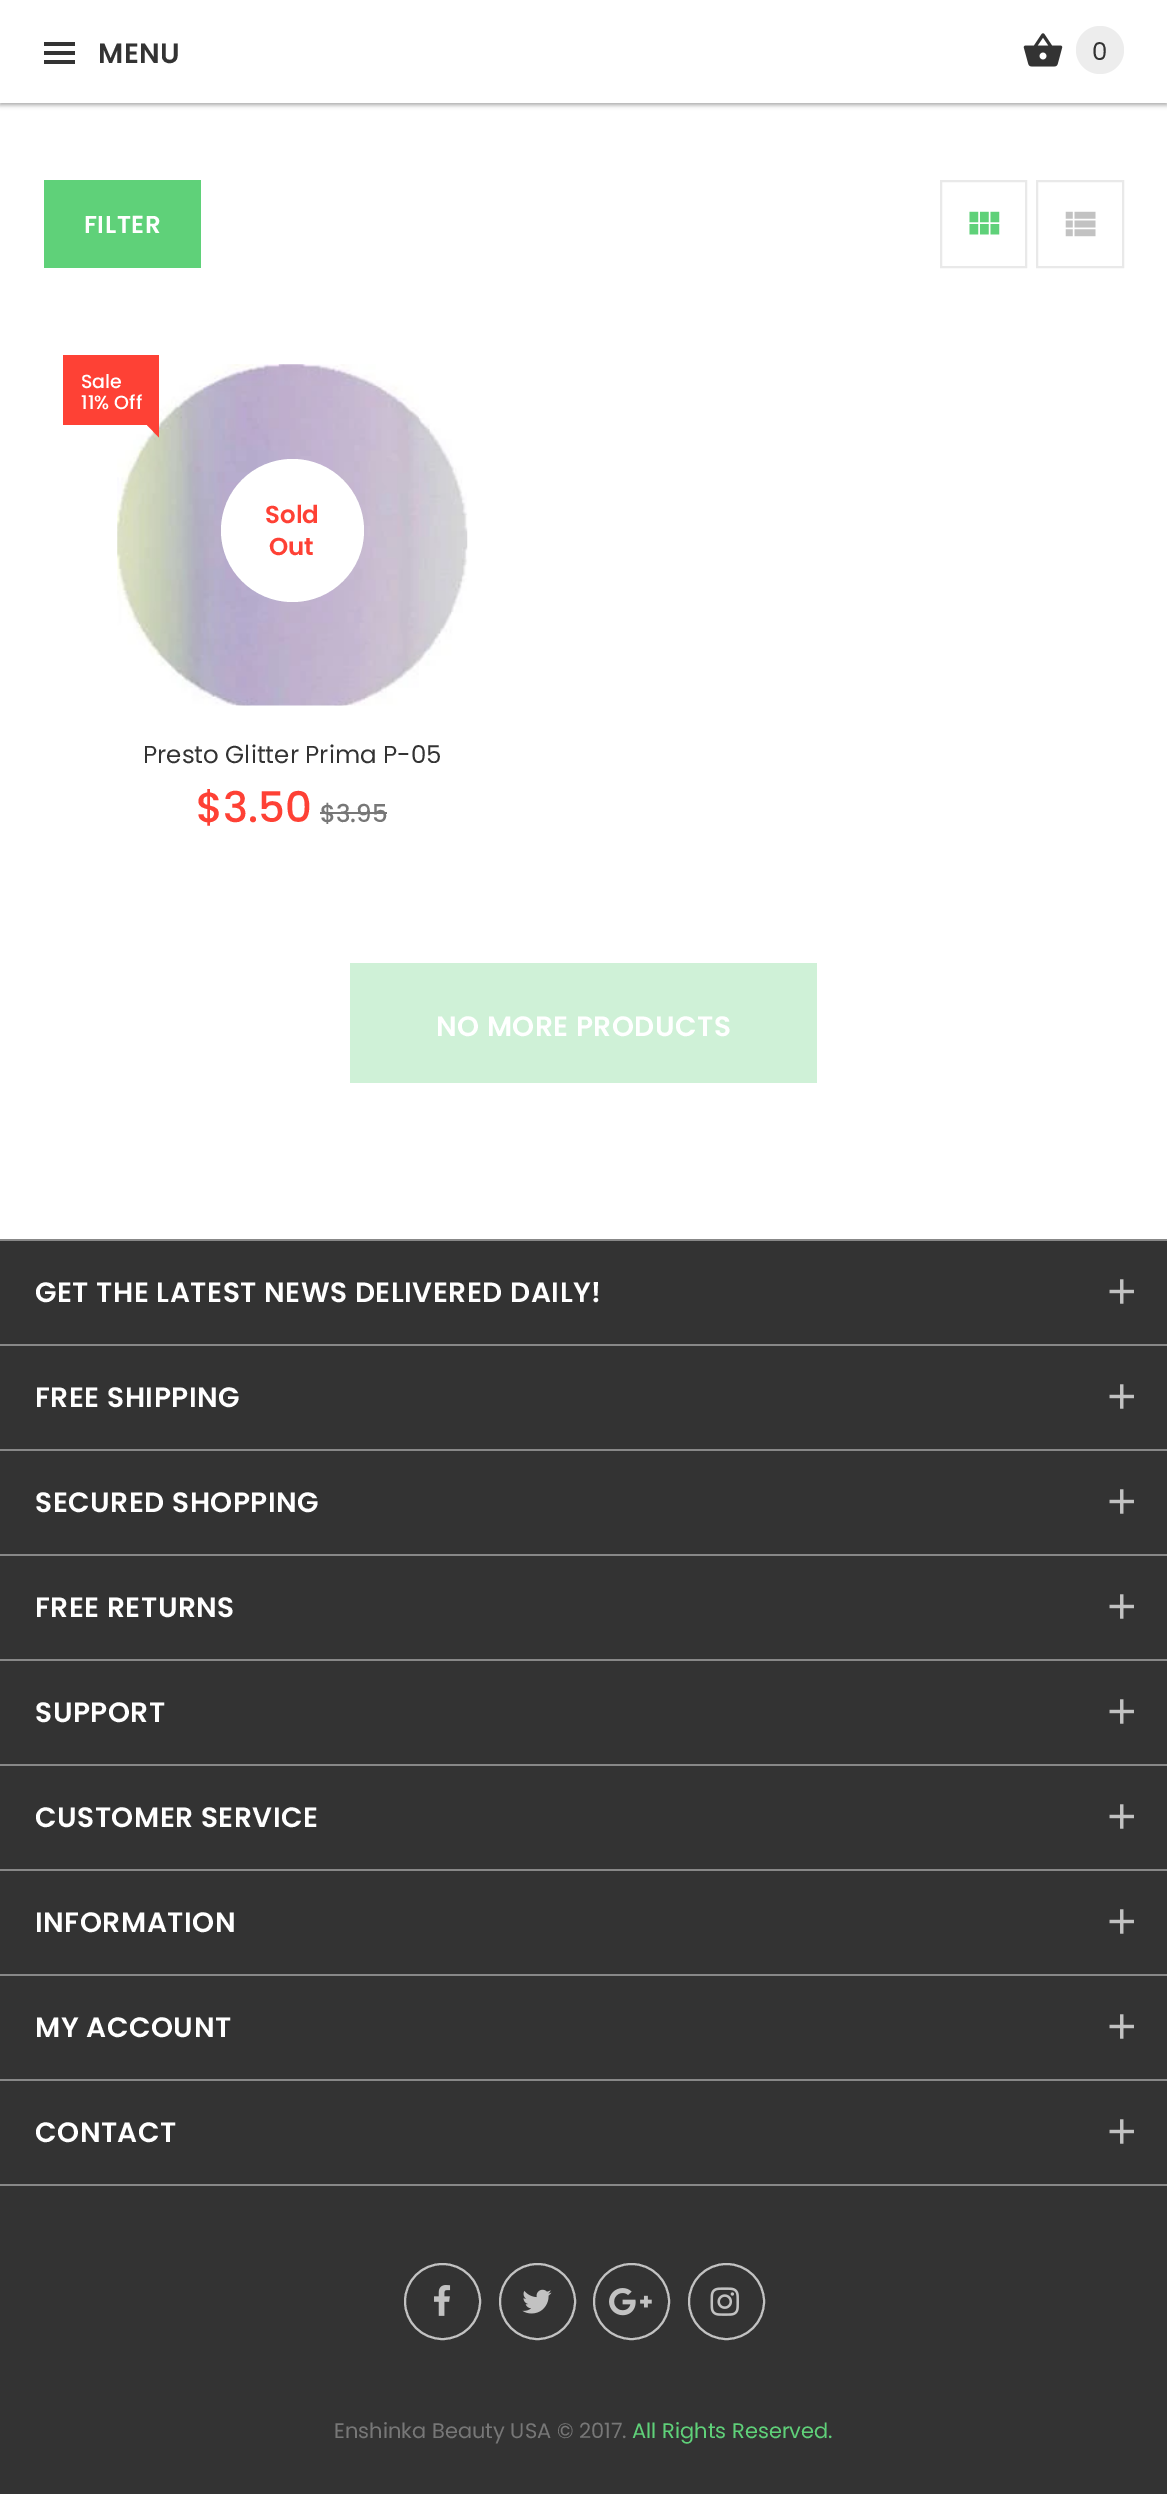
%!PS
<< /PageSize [1167 2494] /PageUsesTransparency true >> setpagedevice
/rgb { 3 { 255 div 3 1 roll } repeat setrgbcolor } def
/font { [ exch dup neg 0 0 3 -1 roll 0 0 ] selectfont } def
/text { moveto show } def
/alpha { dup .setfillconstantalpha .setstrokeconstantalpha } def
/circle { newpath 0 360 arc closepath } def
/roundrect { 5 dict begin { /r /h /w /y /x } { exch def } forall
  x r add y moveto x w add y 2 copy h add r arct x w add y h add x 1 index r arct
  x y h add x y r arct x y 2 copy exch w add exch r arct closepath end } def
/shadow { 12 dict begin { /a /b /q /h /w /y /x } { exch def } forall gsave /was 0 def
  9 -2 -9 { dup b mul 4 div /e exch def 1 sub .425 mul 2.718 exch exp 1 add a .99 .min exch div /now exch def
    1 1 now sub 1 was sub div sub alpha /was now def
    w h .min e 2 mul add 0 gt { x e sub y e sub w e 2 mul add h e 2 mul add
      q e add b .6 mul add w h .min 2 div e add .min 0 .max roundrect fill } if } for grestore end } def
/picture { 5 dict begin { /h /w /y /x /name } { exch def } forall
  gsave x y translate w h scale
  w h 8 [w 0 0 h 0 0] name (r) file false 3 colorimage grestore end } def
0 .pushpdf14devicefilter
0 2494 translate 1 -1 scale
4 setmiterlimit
255 255 255 rgb
0 0 1167 2494 rectfill
0 0 0 rgb
0 2 1167 103 0 2 0.24 shadow
0 2 1167 103 0 2.5 0.12 shadow
255 255 255 rgb
0 0 1167 103 rectfill
51 51 51 rgb
44 42 31 4 rectfill
44 51 31 4 rectfill
44 60 31 4 rectfill
(img_01.rgb) 1023 33 40 34 picture
237 237 237 rgb
1100 50 24 circle fill
95 209 121 rgb
44 180 157 88 rectfill
233 233 233 rgb
2 setlinewidth
941 181 85 86 rectstroke
(img_02.rgb) 969 211 31 24 picture
1037 181 86 86 rectstroke
(img_03.rgb) 1065 211 31 26 picture
(img_04.rgb) 117 364 351 342 picture
254 65 53 rgb
63 355 96 70 rectfill
159 425 moveto 0 12.5 rlineto -12 -12.5 rlineto closepath fill
255 255 255 rgb
292.5 530.5 71.5 circle fill
119 119 119 rgb
320 812 67 2 rectfill
207 241 215 rgb
350 963 467 120 rectfill
51 51 51 rgb
0 1241 1167 1253 rectfill
136 136 136 rgb
0 1239 1167 2 rectfill
0 1344 1167 2 rectfill
(img_05.rgb) 1109 1279 25 25 picture
0 1449 1167 2 rectfill
(img_05.rgb) 1109 1384 25 25 picture
0 1554 1167 2 rectfill
(img_05.rgb) 1109 1489 25 25 picture
0 1659 1167 2 rectfill
(img_05.rgb) 1109 1594 25 25 picture
0 1764 1167 2 rectfill
(img_05.rgb) 1109 1699 25 25 picture
0 1869 1167 2 rectfill
(img_05.rgb) 1109 1804 25 25 picture
0 1974 1167 2 rectfill
(img_05.rgb) 1109 1909 25 25 picture
0 2079 1167 2 rectfill
(img_05.rgb) 1109 2014 25 25 picture
0 2184 1167 2 rectfill
(img_05.rgb) 1109 2119 25 25 picture
194 194 194 rgb
442.5 2301.5 37.5 circle stroke
(img_06.rgb) 434 2285 17 31 picture
537.5 2301.5 37.5 circle stroke
(img_07.rgb) 522 2289 30 25 picture
631.5 2301.5 37.5 circle stroke
(img_08.rgb) 609 2288 43 28 picture
726.5 2301.5 37.5 circle stroke
(img_09.rgb) 710 2287 29 29 picture
/Poppins-SemiBold 28 font
51 51 51 rgb
98 63 moveto 0.55 0 (MENU) ashow
/Poppins-Regular 24.5 font
(0) 1092 60 text
/Poppins-SemiBold 24.5 font
255 255 255 rgb
84 233 moveto 0.5 0 (FILTER) ashow
/Poppins-Medium 19 font
(Sale) 81 388 text
(11% Off) 81 409 text
/Poppins-SemiBold 24.5 font
254 65 53 rgb
(Sold) 265 523 text
(Out) 269 555 text
/Poppins-Regular 24.5 font
51 51 51 rgb
(Presto Glitter Prima P-05) 143 763 text
/Poppins-Medium 42 font
254 65 53 rgb
($3.50) 196 822 text
/Poppins-Medium 24.5 font
119 119 119 rgb
($3.95) 320 822 text
/Poppins-SemiBold 28 font
255 255 255 rgb
436 1036 moveto 0.5 0 (NO MORE PRODUCTS) ashow
35 1302 moveto 0.55 0 (GET THE LATEST NEWS DELIVERED DAILY!) ashow
35 1407 moveto 0.55 0 (FREE SHIPPING) ashow
35 1512 moveto 0.55 0 (SECURED SHOPPING) ashow
35 1617 moveto 0.55 0 (FREE RETURNS) ashow
35 1722 moveto 0.55 0 (SUPPORT) ashow
35 1827 moveto 0.55 0 (CUSTOMER SERVICE) ashow
35 1932 moveto 0.55 0 (INFORMATION) ashow
35 2037 moveto 0.55 0 (MY ACCOUNT) ashow
35 2142 moveto 0.55 0 (CONTACT) ashow
/Poppins-Regular 21 font
119 119 119 rgb
(Enshinka Beauty USA © 2017.) 334 2438 text
95 209 121 rgb
(All Rights Reserved.) 632 2438 text
.poppdf14devicefilter showpage
